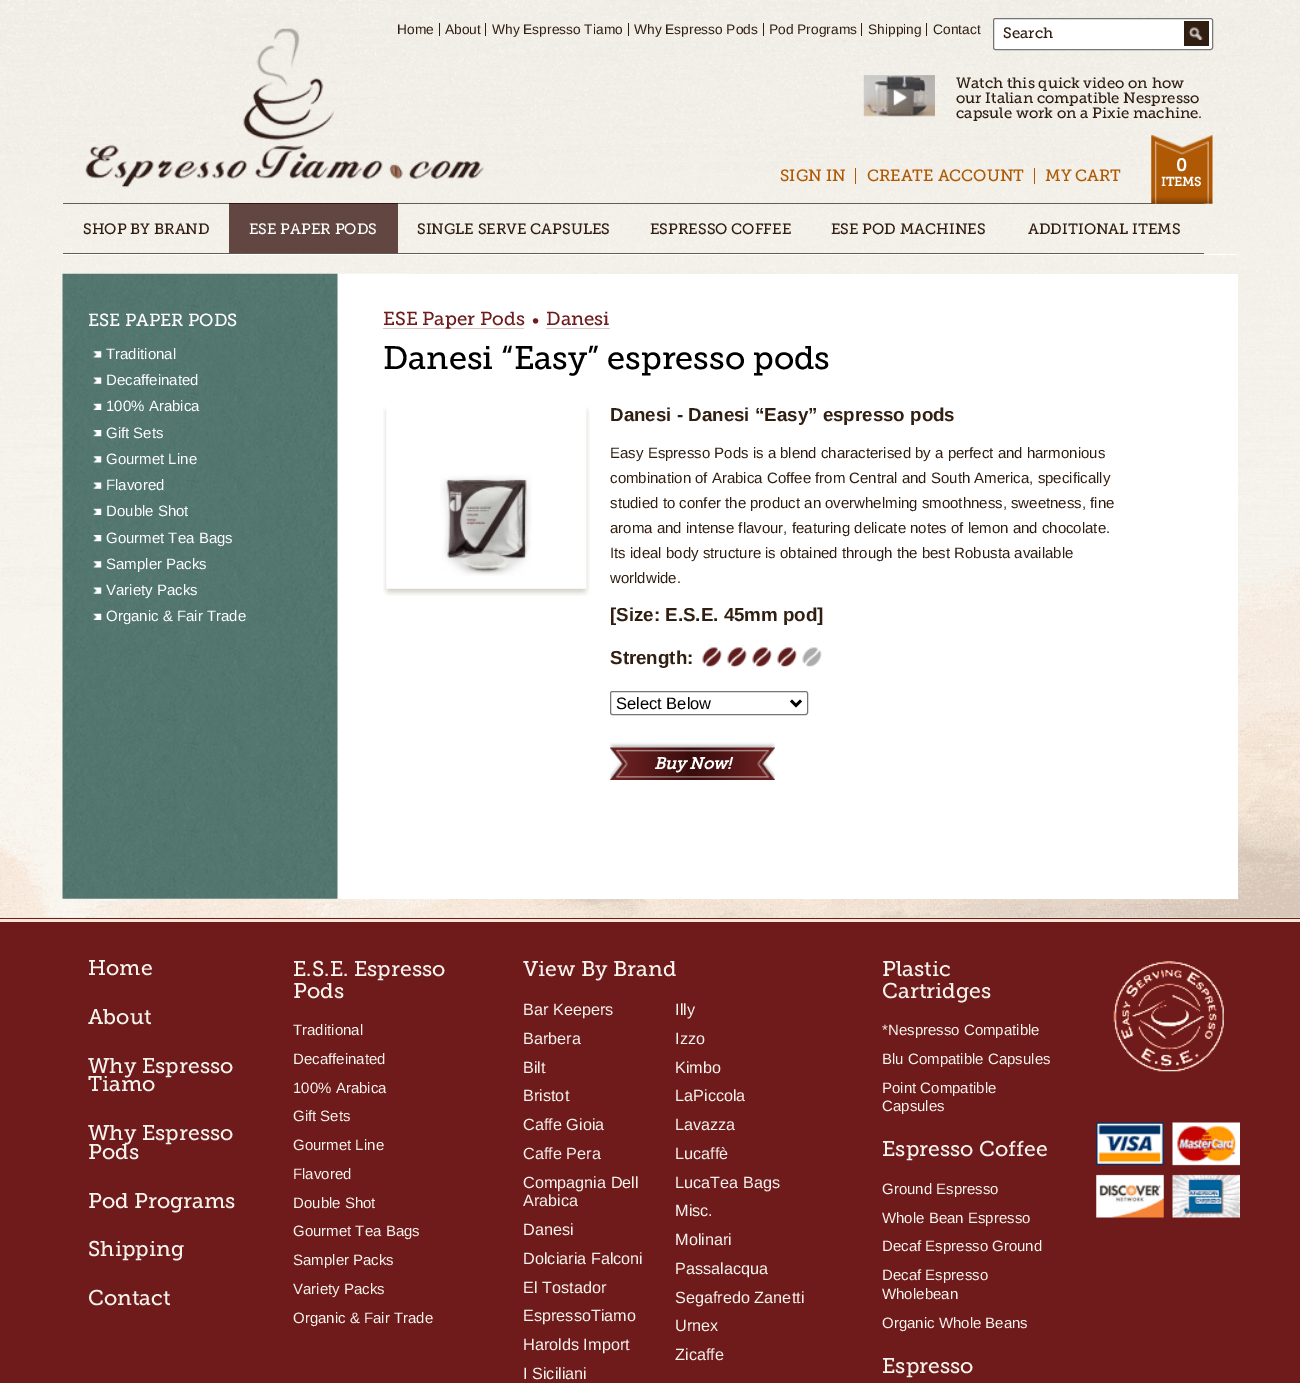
%!PS
<< /PageSize [1300 1383] /PageUsesTransparency true >> setpagedevice
/rgb { 3 { 255 div 3 1 roll } repeat setrgbcolor } def
/font { [ exch dup neg 0 0 3 -1 roll 0 0 ] selectfont } def
/text { moveto show } def
/alpha { dup .setfillconstantalpha .setstrokeconstantalpha } def
/roundrect { 5 dict begin { /r /h /w /y /x } { exch def } forall
  x r add y moveto x w add y 2 copy h add r arct x w add y h add x 1 index r arct
  x y h add x y r arct x y 2 copy exch w add exch r arct closepath end } def
/picture { 5 dict begin { /h /w /y /x /name } { exch def } forall
  gsave x y translate w h scale
  w h 8 [w 0 0 h 0 0] name (r) file false 3 colorimage grestore end } def
0 .pushpdf14devicefilter
0 1383 translate 1 -1 scale
4 setmiterlimit
255 255 255 rgb
0 0 1300 1383 rectfill
(img_01.rgb) 0 917 1300 1 picture
(img_02.rgb) 0 0 1300 918 picture
111 27 27 rgb
0 918 1300 1 rectfill
(img_03.rgb) 85 28 399 160 picture
48 30 16 rgb
439 23 1 13 rectfill
485 23 1 13 rectfill
628 23 1 13 rectfill
763 23 1 13 rectfill
861 23 1 13 rectfill
926 23 1 13 rectfill
255 255 255 rgb
993.5 18.5 219 31 2 roundrect gsave fill grestore
118 118 118 rgb
stroke
48 30 16 rgb
1184 21 25 25 rectfill
(img_04.rgb) 1188 27 15 13 picture
(img_05.rgb) 863 75 72 42 picture
175 89 5 rgb
855 168 1 16 rectfill
1034 168 1 16 rectfill
101 91 81 rgb
398 203 806 1 rectfill
(img_06.rgb) 1151 135 62 69 picture
255 255 255 rgb
63 254 1175 1 rectfill
101 91 81 rgb
63 203 166 1 rectfill
63 253 1141 1 rectfill
0.8 alpha
61 27 23 rgb
229 204 169 49 rectfill
1 alpha
54 18 16 rgb
229 203 169 1 rectfill
255 255 255 rgb
63 880 1175 19 rectfill
(img_07.rgb) 62 273 351 626 picture
(img_08.rgb) 93 351 9 7 picture
(img_09.rgb) 93 377 9 7 picture
(img_10.rgb) 93 403 9 7 picture
(img_11.rgb) 93 430 9 7 picture
(img_12.rgb) 93 456 9 7 picture
(img_13.rgb) 93 482 9 7 picture
(img_14.rgb) 93 508 9 7 picture
(img_15.rgb) 93 535 9 7 picture
(img_16.rgb) 93 561 9 7 picture
(img_17.rgb) 93 587 9 7 picture
(img_18.rgb) 93 613 9 7 picture
339 274 899 606 rectfill
219 198 198 rgb
383 328 141 1 rectfill
546 328 64 1 rectfill
(img_19.rgb) 383 407 207 189 picture
(img_20.rgb) 440 474 92 102 picture
(img_21.rgb) 702 647 20 20 picture
(img_21.rgb) 727 647 20 20 picture
(img_21.rgb) 752 647 20 20 picture
(img_22.rgb) 777 647 20 20 picture
(img_23.rgb) 802 647 20 20 picture
118 118 118 rgb
610.5 691.5 197 23 2 roundrect stroke
0 0 0 rgb
2.5 setlinewidth
791 700.5 moveto 5 5 rlineto 5 -5 rlineto stroke
(img_24.rgb) 610 742 165 38 picture
111 27 27 rgb
0 922 1300 461 rectfill
247 231 215 rgb
0 919 1300 3 rectfill
(img_25.rgb) 1113 961 111 111 picture
(img_26.rgb) 1096 1122 144 96 picture
/LiberationSans-Regular 13.75 font
48 30 16 rgb
(Home) 397 34 text
(About) 445 34 text
(Why Espresso Tiamo) 492 34 text
(Why Espresso Pods) 634 34 text
(Pod Programs) 769 34 text
(Shipping) 868 34 text
(Contact) 933 34 text
/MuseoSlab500-Regular 15 font
(Search) 1003 38 text
(Watch this quick video on how) 956 88 text
(our Italian compatible Nespresso) 956 103 text
(capsule work on a Pixie machine.) 956 118 text
/MuseoSlab500-Regular 16.25 font
175 89 5 rgb
(SIGN IN) 780 181 text
(CREATE ACCOUNT) 867 181 text
(MY CART) 1045 181 text
/MuseoSlab500-Bold 17.5 font
255 255 255 rgb
(0) 1176 171 text
/MuseoSlab500-Bold 12.5 font
(ITEMS) 1161 186 text
/MuseoSlab500-Regular 15 font
48 30 16 rgb
(SHOP BY BRAND) 83 234 text
255 255 255 rgb
(ESE PAPER PODS) 249 234 text
48 30 16 rgb
(SINGLE SERVE CAPSULES) 417 234 text
(ESPRESSO COFFEE) 650 234 text
(ESE POD MACHINES) 831 234 text
(ADDITIONAL ITEMS) 1028 234 text
/MuseoSlab500-Regular 17.5 font
255 255 255 rgb
(ESE PAPER PODS) 88 326 text
/LiberationSans-Regular 15 font
(Traditional) 106 359 text
(Decaffeinated) 106 385 text
(100% Arabica) 106 411 text
(Gift Sets) 106 438 text
(Gourmet Line) 106 464 text
(Flavored) 106 490 text
(Double Shot) 106 516 text
(Gourmet Tea Bags) 106 543 text
(Sampler Packs) 106 569 text
(Variety Packs) 106 595 text
(Organic & Fair Trade) 106 621 text
/MuseoSlab500-Regular 18.75 font
111 27 27 rgb
(ESE Paper Pods) 383 325 text
/MuseoSlab500-Regular 17.5 font
(•) 532 326 text
/MuseoSlab500-Regular 18.75 font
(Danesi) 546 325 text
/MuseoSlab500-Regular 32.5 font
0 0 0 rgb
(Danesi “Easy” espresso pods) 383 369 text
/LiberationSans-Bold 18.75 font
48 30 16 rgb
(Danesi - Danesi “Easy” espresso pods) 610 421 text
/LiberationSans-Regular 15 font
(Easy Espresso Pods is a blend characterised by a perfect and harmonious) 610 458 text
(combination of Arabica Coffee from Central and South America, specifically) 610 483 text
(studied to confer the product an overwhelming smoothness, sweetness, fine) 610 508 text
(aroma and intense flavour, featuring delicate notes of lemon and chocolate.) 610 533 text
(Its ideal body structure is obtained through the best Robusta available) 610 558 text
(worldwide.) 610 583 text
/LiberationSans-Bold 18.75 font
([Size: E.S.E. 45mm pod]) 610 621 text
(Strength:) 610 664 text
/LiberationSans-Regular 16.5 font
0 0 0 rgb
(Select Below) 616 709 text
/MuseoSlab500-BoldItalic 16.25 font
255 255 255 rgb
(Buy Now!) 654 769 text
/MuseoSlab500-Regular 21.25 font
246 243 237 rgb
(Home) 88 975 text
(About) 88 1024 text
(Why Espresso) 88 1073 text
(Tiamo) 88 1091 text
(Why Espresso) 88 1140 text
(Pods) 88 1159 text
(Pod Programs) 88 1208 text
(Shipping) 88 1256 text
(Contact) 88 1305 text
(E.S.E. Espresso) 293 976 text
(Pods) 293 998 text
/LiberationSans-Regular 15 font
(Traditional) 293 1035 text
(Decaffeinated) 293 1064 text
(100% Arabica) 293 1093 text
(Gift Sets) 293 1121 text
(Gourmet Line) 293 1150 text
(Flavored) 293 1179 text
(Double Shot) 293 1208 text
(Gourmet Tea Bags) 293 1236 text
(Sampler Packs) 293 1265 text
(Variety Packs) 293 1294 text
(Organic & Fair Trade) 293 1323 text
/MuseoSlab500-Regular 21.25 font
(View By Brand) 523 976 text
/LiberationSans-Regular 16.25 font
(Bar Keepers) 523 1015 text
(Barbera) 523 1044 text
(Bilt) 523 1073 text
(Bristot) 523 1101 text
(Caffe Gioia) 523 1130 text
(Caffe Pera) 523 1159 text
(Compagnia Dell) 523 1188 text
(Arabica) 523 1206 text
(Danesi) 523 1235 text
(Dolciaria Falconi) 523 1264 text
(El Tostador) 523 1293 text
(EspressoTiamo) 523 1321 text
(Harolds Import) 523 1350 text
(I Siciliani) 523 1379 text
(Illy) 675 1015 text
(Izzo) 675 1044 text
(Kimbo) 675 1073 text
(LaPiccola) 675 1101 text
(Lavazza) 675 1130 text
(Lucaffè) 675 1159 text
(LucaTea Bags) 675 1188 text
(Misc.) 675 1216 text
(Molinari) 675 1245 text
(Passalacqua) 675 1274 text
(Segafredo Zanetti) 675 1303 text
(Urnex) 675 1331 text
(Zicaffe) 675 1360 text
/MuseoSlab500-Regular 21.25 font
(Plastic) 882 976 text
(Cartridges) 882 998 text
/LiberationSans-Regular 15 font
(*Nespresso Compatible) 882 1035 text
(Blu Compatible Capsules) 882 1064 text
(Point Compatible) 882 1093 text
(Capsules) 882 1111 text
/MuseoSlab500-Regular 21.25 font
(Espresso Coffee) 882 1156 text
/LiberationSans-Regular 15 font
(Ground Espresso) 882 1194 text
(Whole Bean Espresso) 882 1223 text
(Decaf Espresso Ground) 882 1251 text
(Decaf Espresso) 882 1280 text
(Wholebean) 882 1299 text
(Organic Whole Beans) 882 1328 text
/MuseoSlab500-Regular 21.25 font
(Espresso) 882 1373 text
.poppdf14devicefilter showpage
